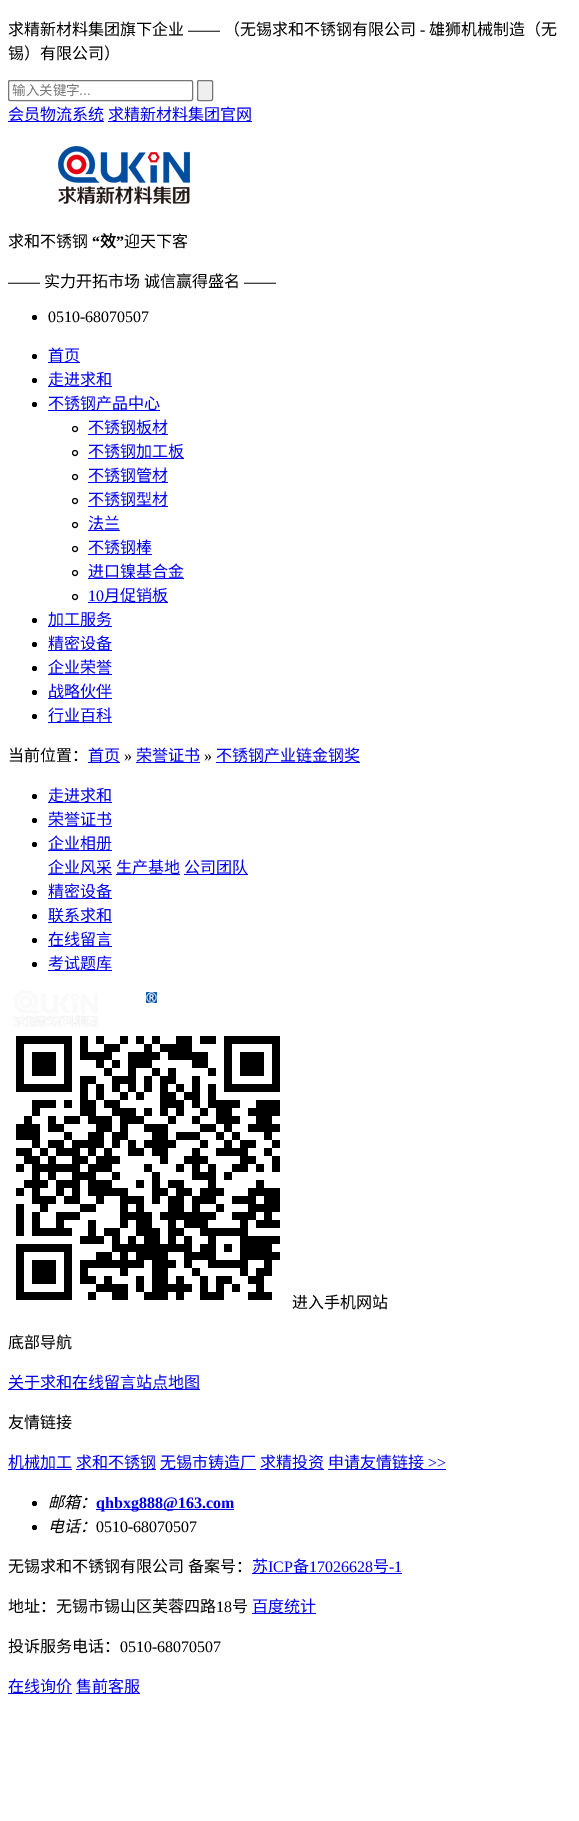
%!PS
<< /PageSize [579 1821] >> setpagedevice
/rgb { 3 { 255 div 3 1 roll } repeat setrgbcolor } def
/font { [ exch dup neg 0 0 3 -1 roll 0 0 ] selectfont } def
/text { moveto show } def
/circle { newpath 0 360 arc closepath } def
/roundrect { 5 dict begin { /r /h /w /y /x } { exch def } forall
  x r add y moveto x w add y 2 copy h add r arct x w add y h add x 1 index r arct
  x y h add x y r arct x y 2 copy exch w add exch r arct closepath end } def
/picture { 5 dict begin { /h /w /y /x /name } { exch def } forall
  gsave x y translate w h scale
  w h 8 [w 0 0 h 0 0] name (r) file false 3 colorimage grestore end } def
0 1821 translate 1 -1 scale
4 setmiterlimit
255 255 255 rgb
0 0 579 1821 rectfill
118 118 118 rgb
8.5 80.5 184 20 1.5 roundrect stroke
239 239 239 rgb
197.5 80.5 15 20 1.5 roundrect gsave fill grestore
118 118 118 rgb
stroke
0 0 238 rgb
8 121 96 1 rectfill
108 121 144 1 rectfill
(img_01.rgb) 58 146 132 58 picture
0 0 0 rgb
34.5 317.5 2.5 circle fill
34.5 356.5 2.5 circle fill
0 0 238 rgb
48 362 32 1 rectfill
0 0 0 rgb
34.5 380.5 2.5 circle fill
0 0 238 rgb
48 386 64 1 rectfill
0 0 0 rgb
34.5 404.5 2.5 circle fill
0 0 238 rgb
48 410 112 1 rectfill
0 0 0 rgb
75 429 2.5 circle stroke
0 0 238 rgb
88 434 80 1 rectfill
0 0 0 rgb
75 453 2.5 circle stroke
0 0 238 rgb
88 458 96 1 rectfill
0 0 0 rgb
75 477 2.5 circle stroke
0 0 238 rgb
88 482 80 1 rectfill
0 0 0 rgb
75 501 2.5 circle stroke
0 0 238 rgb
88 506 80 1 rectfill
0 0 0 rgb
75 525 2.5 circle stroke
0 0 238 rgb
88 530 32 1 rectfill
0 0 0 rgb
75 549 2.5 circle stroke
0 0 238 rgb
88 554 64 1 rectfill
0 0 0 rgb
75 573 2.5 circle stroke
0 0 238 rgb
88 578 96 1 rectfill
0 0 0 rgb
75 597 2.5 circle stroke
0 0 238 rgb
88 602 80 1 rectfill
0 0 0 rgb
34.5 620.5 2.5 circle fill
0 0 238 rgb
48 626 64 1 rectfill
0 0 0 rgb
34.5 644.5 2.5 circle fill
0 0 238 rgb
48 650 64 1 rectfill
0 0 0 rgb
34.5 668.5 2.5 circle fill
0 0 238 rgb
48 674 64 1 rectfill
0 0 0 rgb
34.5 692.5 2.5 circle fill
0 0 238 rgb
48 698 64 1 rectfill
0 0 0 rgb
34.5 716.5 2.5 circle fill
0 0 238 rgb
48 722 64 1 rectfill
88 762 32 1 rectfill
136 762 64 1 rectfill
216 762 144 1 rectfill
0 0 0 rgb
34.5 796.5 2.5 circle fill
0 0 238 rgb
48 802 64 1 rectfill
0 0 0 rgb
34.5 820.5 2.5 circle fill
0 0 238 rgb
48 826 64 1 rectfill
0 0 0 rgb
34.5 844.5 2.5 circle fill
0 0 238 rgb
48 850 64 1 rectfill
48 874 64 1 rectfill
116 874 64 1 rectfill
184 874 64 1 rectfill
0 0 0 rgb
34.5 892.5 2.5 circle fill
0 0 238 rgb
48 898 64 1 rectfill
0 0 0 rgb
34.5 916.5 2.5 circle fill
0 0 238 rgb
48 922 64 1 rectfill
0 0 0 rgb
34.5 940.5 2.5 circle fill
0 0 238 rgb
48 946 64 1 rectfill
0 0 0 rgb
34.5 964.5 2.5 circle fill
0 0 238 rgb
48 970 64 1 rectfill
(img_02.rgb) 14 990 143 37 picture
(img_03.rgb) 16 1036 264 264 picture
8 1389 192 1 rectfill
8 1469 64 1 rectfill
76 1469 80 1 rectfill
160 1469 96 1 rectfill
260 1469 64 1 rectfill
328 1469 118 1 rectfill
0 0 0 rgb
34.5 1503.5 2.5 circle fill
0 0 238 rgb
96 1509 138 1 rectfill
0 0 0 rgb
34.5 1527.5 2.5 circle fill
0 0 238 rgb
252 1573 150 1 rectfill
252 1613 64 1 rectfill
8 1693 64 1 rectfill
76 1693 64 1 rectfill
/NotoSansCJKSC-Regular 16 font
0 0 0 rgb
(求精新材料集团旗下企业) 8 35 text
/LiberationSerif-Regular 16 font
(——) 188 35 text
/NotoSansCJKSC-Regular 16 font
(（无锡求和不锈钢有限公司) 224 35 text
/LiberationSerif-Regular 16 font
(-) 420 35 text
/NotoSansCJKSC-Regular 16 font
(雄狮机械制造（无) 429 35 text
(锡）有限公司）) 8 59 text
/NotoSansCJKSC-Regular 13.5 font
117 117 117 rgb
(输入关键字) 12 95 text
/LiberationSans-Regular 13.5 font
(...) 79 95 text
/NotoSansCJKSC-Regular 16 font
0 0 238 rgb
(会员物流系统) 8 120 text
(求精新材料集团官网) 108 120 text
0 0 0 rgb
(求和不锈钢) 8 247 text
/LiberationSerif-Bold 16 font
(“) 92 247 text
/NotoSansCJKSC-Bold 16 font
(效) 100 247 text
/LiberationSerif-Bold 16 font
(”) 116 247 text
/NotoSansCJKSC-Regular 16 font
(迎天下客) 124 247 text
/LiberationSerif-Regular 16 font
(——) 8 287 text
/NotoSansCJKSC-Regular 16 font
(实力开拓市场) 44 287 text
(诚信赢得盛名) 144 287 text
/LiberationSerif-Regular 16 font
(——) 244 287 text
(0510-68070507) 48 322 text
/NotoSansCJKSC-Regular 16 font
0 0 238 rgb
(首页) 48 361 text
(走进求和) 48 385 text
(不锈钢产品中心) 48 409 text
(不锈钢板材) 88 433 text
(不锈钢加工板) 88 457 text
(不锈钢管材) 88 481 text
(不锈钢型材) 88 505 text
(法兰) 88 529 text
(不锈钢棒) 88 553 text
(进口镍基合金) 88 577 text
/LiberationSerif-Regular 16 font
(10) 88 601 text
/NotoSansCJKSC-Regular 16 font
(月促销板) 104 601 text
(加工服务) 48 625 text
(精密设备) 48 649 text
(企业荣誉) 48 673 text
(战略伙伴) 48 697 text
(行业百科) 48 721 text
0 0 0 rgb
(当前位置：) 8 761 text
0 0 238 rgb
(首页) 88 761 text
/LiberationSerif-Regular 16 font
0 0 0 rgb
(») 124 761 text
/NotoSansCJKSC-Regular 16 font
0 0 238 rgb
(荣誉证书) 136 761 text
/LiberationSerif-Regular 16 font
0 0 0 rgb
(») 204 761 text
/NotoSansCJKSC-Regular 16 font
0 0 238 rgb
(不锈钢产业链金钢奖) 216 761 text
(走进求和) 48 801 text
(荣誉证书) 48 825 text
(企业相册) 48 849 text
(企业风采) 48 873 text
(生产基地) 116 873 text
(公司团队) 184 873 text
(精密设备) 48 897 text
(联系求和) 48 921 text
(在线留言) 48 945 text
(考试题库) 48 969 text
0 0 0 rgb
(进入手机网站) 292 1308 text
(底部导航) 8 1348 text
0 0 238 rgb
(关于求和在线留言站点地图) 8 1388 text
0 0 0 rgb
(友情链接) 8 1428 text
0 0 238 rgb
(机械加工) 8 1468 text
(求和不锈钢) 76 1468 text
(无锡市铸造厂) 160 1468 text
(求精投资) 260 1468 text
(申请友情链接) 328 1468 text
/LiberationSerif-Regular 16 font
(>>) 428 1468 text
/NotoSansCJKSC-Italic 16 font
0 0 0 rgb
(邮箱：) 48 1508 text
/LiberationSerif-Bold 16 font
0 0 238 rgb
(qhbxg888@163.com) 96 1508 text
/NotoSansCJKSC-Italic 16 font
0 0 0 rgb
(电话：) 48 1532 text
/LiberationSerif-Regular 16 font
(0510-68070507) 96 1532 text
/NotoSansCJKSC-Regular 16 font
(无锡求和不锈钢有限公司) 8 1572 text
(备案号：) 188 1572 text
0 0 238 rgb
(苏) 252 1572 text
/LiberationSerif-Regular 16 font
(ICP) 268 1572 text
/NotoSansCJKSC-Regular 16 font
(备) 293 1572 text
/LiberationSerif-Regular 16 font
(17026628) 309 1572 text
/NotoSansCJKSC-Regular 16 font
(号) 373 1572 text
/LiberationSerif-Regular 16 font
(-1) 389 1572 text
/NotoSansCJKSC-Regular 16 font
0 0 0 rgb
(地址：无锡市锡山区芙蓉四路) 8 1612 text
/LiberationSerif-Regular 16 font
(18) 216 1612 text
/NotoSansCJKSC-Regular 16 font
(号) 232 1612 text
0 0 238 rgb
(百度统计) 252 1612 text
0 0 0 rgb
(投诉服务电话：) 8 1652 text
/LiberationSerif-Regular 16 font
(0510-68070507) 120 1652 text
/NotoSansCJKSC-Regular 16 font
0 0 238 rgb
(在线询价) 8 1692 text
(售前客服) 76 1692 text
showpage
